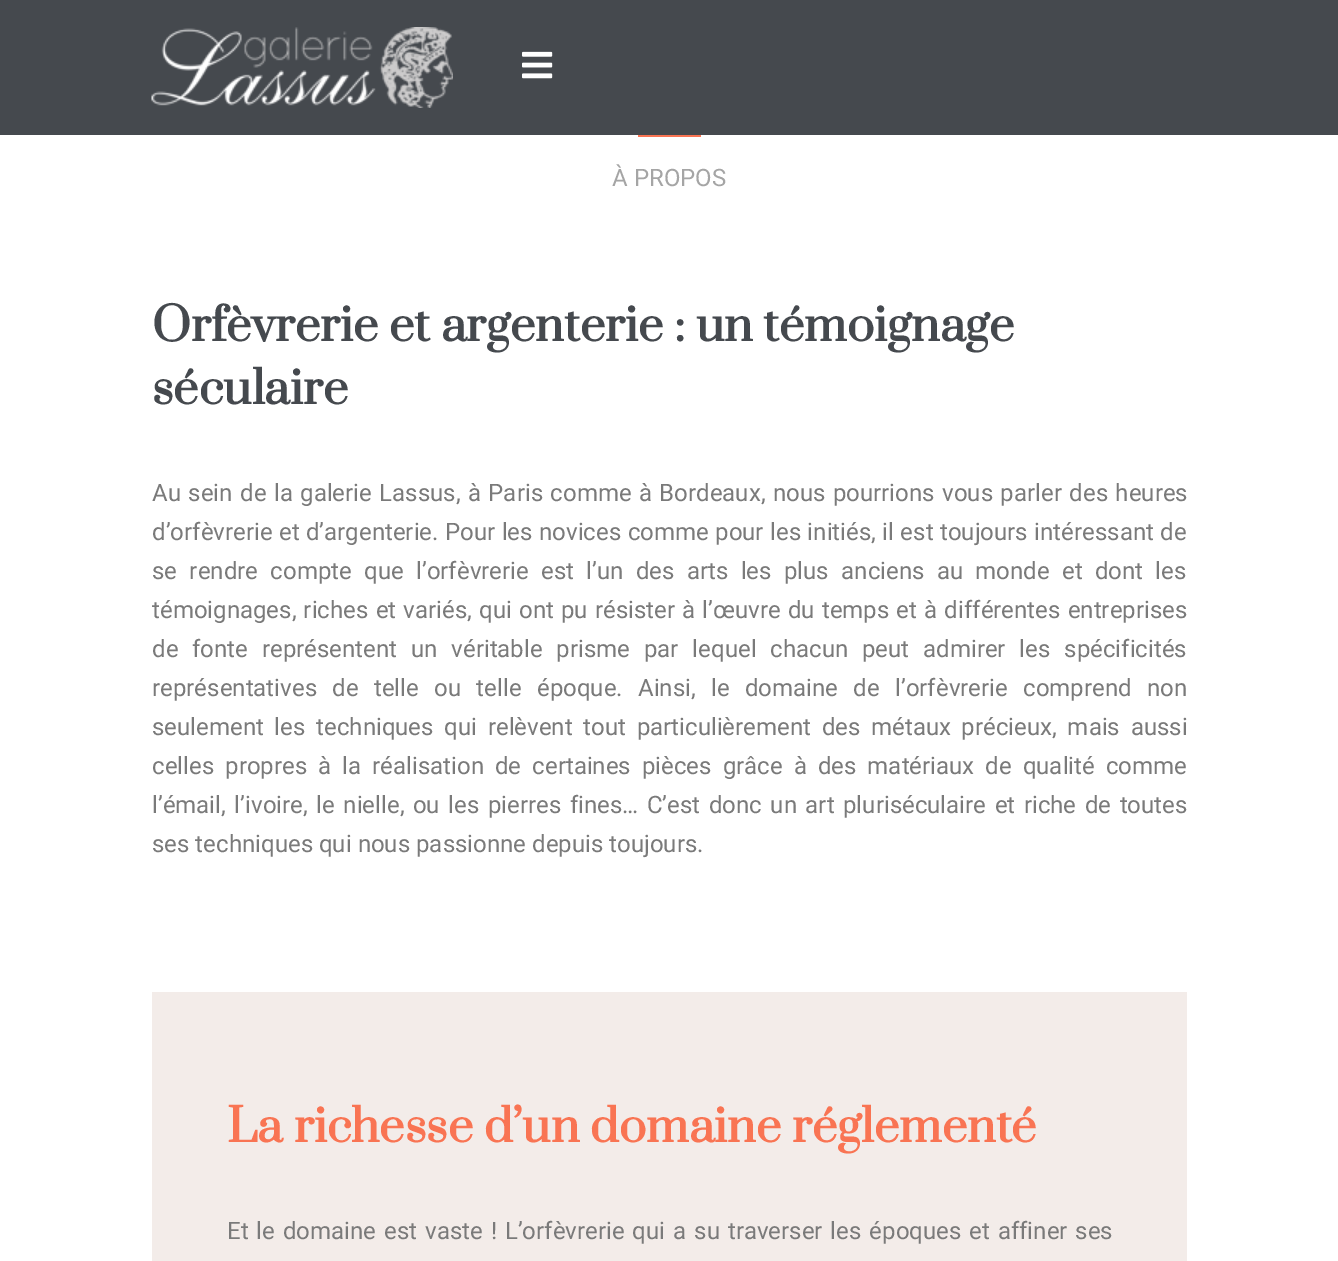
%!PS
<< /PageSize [1338 1261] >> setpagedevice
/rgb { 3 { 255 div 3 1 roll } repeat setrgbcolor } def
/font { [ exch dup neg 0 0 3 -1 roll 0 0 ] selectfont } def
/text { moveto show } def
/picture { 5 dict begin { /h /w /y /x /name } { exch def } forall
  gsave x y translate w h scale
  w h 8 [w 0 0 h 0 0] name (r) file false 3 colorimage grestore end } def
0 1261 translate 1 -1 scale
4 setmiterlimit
255 255 255 rgb
0 0 1338 1261 rectfill
69 73 78 rgb
0 0 1338 135 rectfill
(img_01.rgb) 151 27 302 81 picture
(img_02.rgb) 522 51 31 28 picture
249 116 83 rgb
638 135 63 2 rectfill
243 236 233 rgb
152 992 1035 269 rectfill
/Roboto-Regular 24 font
165 165 165 rgb
(À PROPOS) 612 186 text
/Prata-Bold 45 font
69 73 78 rgb
(Orfèvrerie et argenterie : un témoignage) 152 341 text
(séculaire) 152 404 text
/Roboto-Regular 24 font
122 122 122 rgb
152 501 moveto 1.5 0 32 (Au sein de la galerie Lassus, à Paris comme à Bordeaux, nous pourrions vous parler des heures) widthshow
152 540 moveto 0.5 0 32 (d’orfèvrerie et d’argenterie. Pour les novices comme pour les initiés, il est toujours intéressant de) widthshow
152 579 moveto 6.4 0 32 (se rendre compte que l’orfèvrerie est l’un des arts les plus anciens au monde et dont les) widthshow
152 618 moveto 1.25 0 32 (témoignages, riches et variés, qui ont pu résister à l’œuvre du temps et à différentes entreprises) widthshow
152 657 moveto 7.9 0 32 (de fonte représentent un véritable prisme par lequel chacun peut admirer les spécificités) widthshow
152 696 moveto 9.4 0 32 (représentatives de telle ou telle époque. Ainsi, le domaine de l’orfèvrerie comprend non) widthshow
152 735 moveto 4.75 0 32 (seulement les techniques qui relèvent tout particulièrement des métaux précieux, mais aussi) widthshow
152 774 moveto 5.1 0 32 (celles propres à la réalisation de certaines pièces grâce à des matériaux de qualité comme) widthshow
152 813 moveto 2.6 0 32 (l’émail, l’ivoire, le nielle, ou les pierres fines… C’est donc un art pluriséculaire et riche de toutes) widthshow
(ses techniques qui nous passionne depuis toujours.) 152 852 text
/Prata-Bold 45 font
249 116 83 rgb
(La richesse d’un domaine réglementé) 227 1142 text
/Roboto-Regular 24 font
122 122 122 rgb
227 1239 moveto 2 0 32 (Et le domaine est vaste ! L’orfèvrerie qui a su traverser les époques et affiner ses) widthshow
showpage
